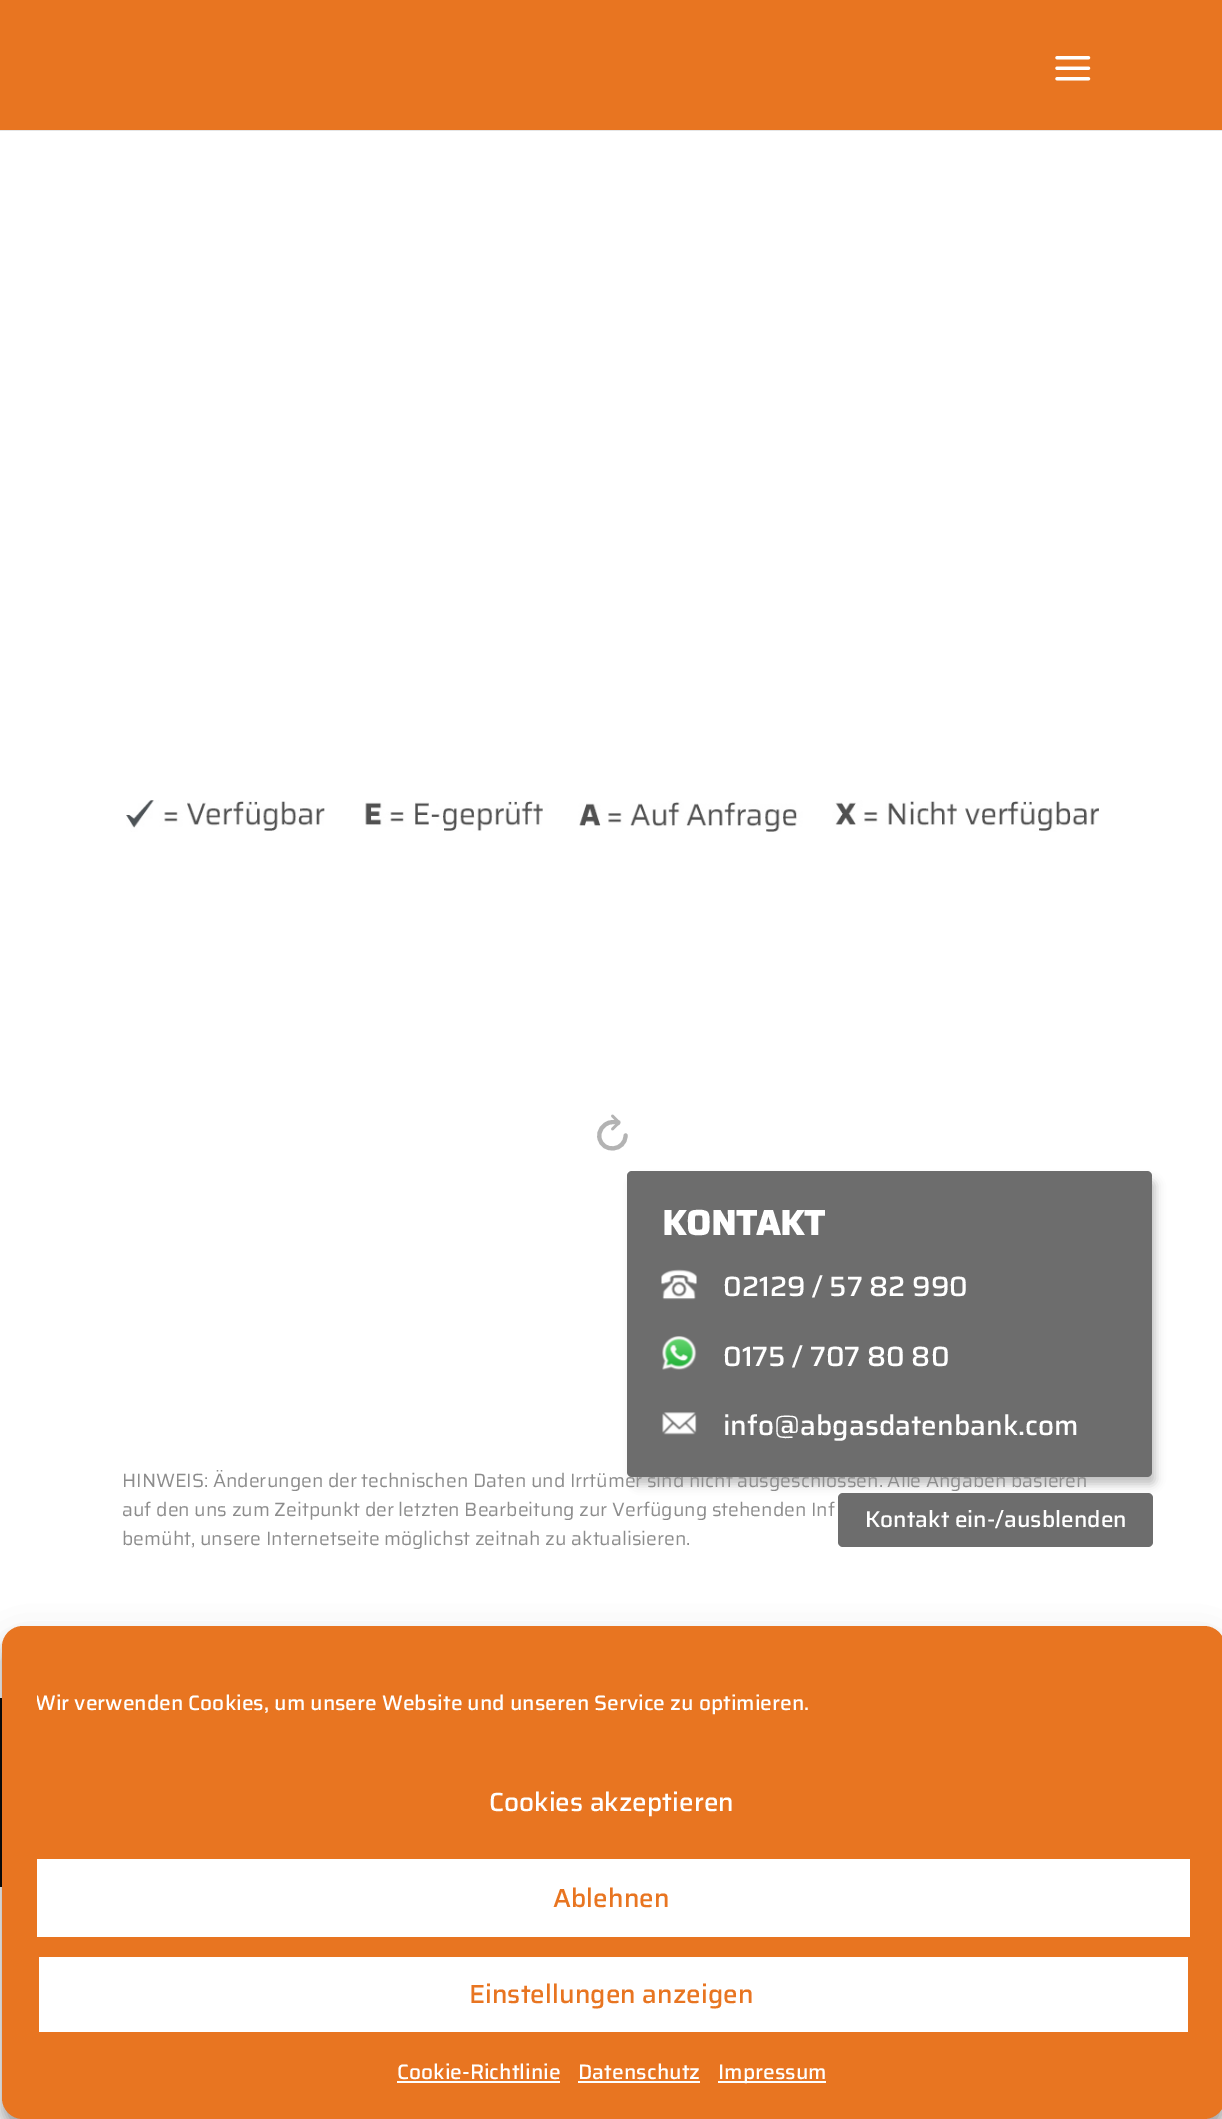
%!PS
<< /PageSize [1222 2119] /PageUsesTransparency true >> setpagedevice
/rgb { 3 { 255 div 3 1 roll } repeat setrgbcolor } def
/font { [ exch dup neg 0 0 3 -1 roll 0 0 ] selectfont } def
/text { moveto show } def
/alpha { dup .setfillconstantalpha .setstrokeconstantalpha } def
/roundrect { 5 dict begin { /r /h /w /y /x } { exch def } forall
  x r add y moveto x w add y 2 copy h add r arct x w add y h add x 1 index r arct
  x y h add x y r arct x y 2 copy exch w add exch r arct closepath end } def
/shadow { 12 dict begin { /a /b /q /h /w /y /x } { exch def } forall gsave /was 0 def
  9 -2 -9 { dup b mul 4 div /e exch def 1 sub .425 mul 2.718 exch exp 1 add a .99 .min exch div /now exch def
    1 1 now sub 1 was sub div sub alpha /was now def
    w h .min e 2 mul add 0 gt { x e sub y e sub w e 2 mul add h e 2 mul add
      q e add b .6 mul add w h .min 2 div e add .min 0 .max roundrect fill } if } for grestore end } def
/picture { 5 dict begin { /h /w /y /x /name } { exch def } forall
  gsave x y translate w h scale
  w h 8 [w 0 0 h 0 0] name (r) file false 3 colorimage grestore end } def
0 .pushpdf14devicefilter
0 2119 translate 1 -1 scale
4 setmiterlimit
255 255 255 rgb
0 0 1222 2119 rectfill
230 230 230 rgb
0 130 1222 1 rectfill
232 117 33 rgb
0 0 1222 130 rectfill
(img_01.rgb) 1055 56 36 25 picture
0 0 0 rgb
634 1181 521 303 4 5 0.25 shadow
109 109 109 rgb
838 1493 315 54 5 roundrect fill
(img_05.rgb) 126 800 973 32 picture
179 179 179 rgb
4.1 setlinewidth
1 setlinecap
618 1123 moveto 0 -0.5 rlineto -2 -0.5 -6.5 -0.5 -8 0 rcurveto -7 1.5 -12 8.5 -10.5 15.5 rcurveto 3 15.5 26 13 26 -2.5 rcurveto stroke
2.6 setlinewidth
1 setlinejoin
612.5 1116 moveto 6.5 6.5 rlineto -6.5 6.5 rlineto stroke
10 10 10 rgb
0 1698 2 189 rectfill
0 0 0 rgb
2 1636 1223 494 21 5 0.23 shadow
2 1643 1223 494 21 17.5 0.19 shadow
232 117 33 rgb
2 1626 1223 493 21 roundrect fill
255 255 255 rgb
37 1859 1153 78 rectfill
39 1957 1149 75 rectfill
397 2081 163 2 rectfill
578 2081 122 2 rectfill
718 2081 108 2 rectfill
/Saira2-Thin 22.75 font
(Kontakt ein-/ausblenden) 865 1527 text
/Saira-Thin 19.25 font
140 140 140 rgb
(HINWEIS: Änderungen der technischen Daten und Irrtümer sind nicht ausgeschlossen. Alle Angaben basieren) 122 1487 text
109 109 109 rgb
627 1171 525 306 5 roundrect fill
/Saira2-Thin 28 font
255 255 255 rgb
(info@abgasdatenbank.com) 723 1435 text
(0175 / 707 80 80) 723 1366 text
(02129 / 57 82 990) 723 1296 text
/Saira-Bold 35 font
(KONTAKT) 662 1235 text
(img_04.rgb) 662 1412 35 23 picture
(img_03.rgb) 662 1336 35 34 picture
(img_02.rgb) 661 1269 36 31 picture
/Saira-Thin 19.25 font
140 140 140 rgb
(auf den uns zum Zeitpunkt der letzten Bearbeitung zur Verfügung stehenden Inf) 122 1516 text
(bemüht, unsere Internetseite möglichst zeitnah zu aktualisieren.) 122 1545 text
gsave
37 1687 1153 40 rectclip
/Saira2-Thin 21 font
255 255 255 rgb
(Wir verwenden Cookies, um unsere Website und unseren Service zu optimieren.) 35 1710 text
grestore
/Saira2-Thin 26.25 font
255 255 255 rgb
(Cookies akzeptieren) 489 1811 text
232 117 33 rgb
(Ablehnen) 553 1907 text
(Einstellungen anzeigen) 469 2003 text
/Saira2-Thin 21 font
255 255 255 rgb
(Cookie-Richtlinie) 397 2079 text
(Datenschutz) 578 2079 text
(Impressum) 718 2079 text
.poppdf14devicefilter showpage
